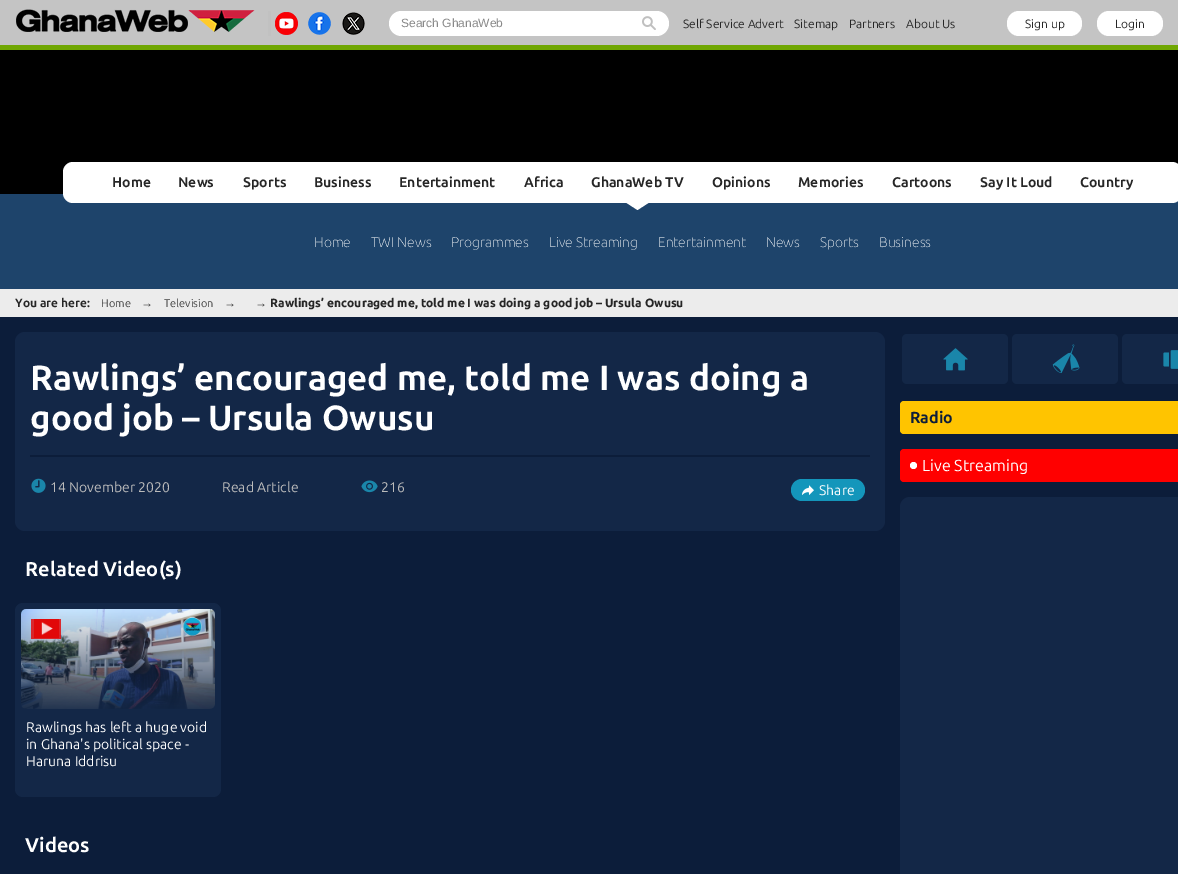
%!PS
<< /PageSize [1178 874] /PageUsesTransparency true >> setpagedevice
/rgb { 3 { 255 div 3 1 roll } repeat setrgbcolor } def
/font { [ exch dup neg 0 0 3 -1 roll 0 0 ] selectfont } def
/text { moveto show } def
/alpha { dup .setfillconstantalpha .setstrokeconstantalpha } def
/circle { newpath 0 360 arc closepath } def
/roundrect { 5 dict begin { /r /h /w /y /x } { exch def } forall
  x r add y moveto x w add y 2 copy h add r arct x w add y h add x 1 index r arct
  x y h add x y r arct x y 2 copy exch w add exch r arct closepath end } def
/picture { 5 dict begin { /h /w /y /x /name } { exch def } forall
  gsave x y translate w h scale
  w h 8 [w 0 0 h 0 0] name (r) file false 3 colorimage grestore end } def
0 .pushpdf14devicefilter
0 874 translate 1 -1 scale
4 setmiterlimit
12 29 58 rgb
0 0 1178 874 rectfill
196 196 196 rgb
0 0 1178 45 rectfill
112 167 3 rgb
0 45 1178 5 rectfill
(img_01.rgb) 16 9 239 23 picture
193 193 193 rgb
268 11 3 25 rectfill
(img_02.rgb) 275 12 23 23 picture
(img_03.rgb) 308 12 23 23 picture
(img_04.rgb) 342 12 23 23 picture
255 255 255 rgb
389 11 280 25 12.5 roundrect fill
(img_05.rgb) 642 16 14 14 picture
1007 11 75 25 12 roundrect fill
1097 11 66 25 12 roundrect fill
0 0 0 rgb
0 50 1178 144 rectfill
30 68 107 rgb
0 194 1178 95 rectfill
255 255 255 rgb
63 162 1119 41 10 roundrect fill
619 198 moveto 37 0 rlineto -18.5 12 rlineto closepath fill
236 236 236 rgb
0 289 1178 28 rectfill
19 39 71 rgb
15 332 870 199 10 roundrect fill
12 29 58 rgb
30 455 840 2 rectfill
(img_06.rgb) 31 478 15 15 picture
(img_07.rgb) 361 480 17 13 picture
20 150 187 rgb
791 479 74 22 11 roundrect fill
(img_08.rgb) 802 485 12 10 picture
19 39 71 rgb
15 603 206 194 8 roundrect fill
(img_09.rgb) 21 609 194 100 picture
0.8 alpha
228 0 0 rgb
31 619 30 20 rectfill
1 alpha
(img_10.rgb) 34 619 25 19 picture
19 39 71 rgb
902 334 106 50 5 roundrect fill
(img_11.rgb) 943 348 25 23 picture
1012 334 106 50 5 roundrect fill
(img_12.rgb) 1052 344 28 29 picture
1122 334 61 50 5 roundrect fill
(img_13.rgb) 1163 350 15 19 picture
255 196 0 rgb
900 401 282 33 4 roundrect fill
255 0 0 rgb
900 449 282 33 4 roundrect fill
255 255 255 rgb
913.5 465.5 3.5 circle fill
19 39 71 rgb
900 497 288 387 10 roundrect fill
/LiberationSans-Regular 12 font
136 136 136 rgb
(Search GhanaWeb) 401 27 text
/Ubuntu-Regular 12 font
38 38 38 rgb
(Self Service Advert) 683 28 text
(Sitemap) 794 28 text
(Partners) 849 28 text
(About Us) 906 28 text
(Sign up) 1025 28 text
(Login) 1115 28 text
/Ubuntu-Bold 14 font
(Home) 112 187 text
(News) 178 187 text
(Sports) 243 187 text
(Business) 314 187 text
(Entertainment) 399 187 text
(Africa) 524 187 text
(GhanaWeb TV) 591 187 text
(Opinions) 712 187 text
(Memories) 798 187 text
(Cartoons) 892 187 text
(Say It Loud) 980 187 text
(Country) 1080 187 text
/Ubuntu-Thin 14 font
255 255 255 rgb
(Home) 314 247 text
(TWI News) 371 247 text
(Programmes) 451 247 text
(Live Streaming) 549 247 text
(Entertainment) 658 247 text
(News) 766 247 text
(Sports) 820 247 text
(Business) 879 247 text
/Ubuntu-Bold 12 font
38 38 38 rgb
(You are here:) 15 307 text
/Ubuntu-Regular 11 font
65 65 65 rgb
(Home) 101 307 text
/LiberationSans-Bold 12 font
38 38 38 rgb
(→) 141 307 text
/Ubuntu-Regular 11 font
65 65 65 rgb
(Television) 164 307 text
/LiberationSans-Bold 12 font
38 38 38 rgb
(→) 224 307 text
(→) 255 307 text
/Ubuntu-ExtraBold 12 font
(Rawlings’ encouraged me, told me I was doing a good job – Ursula Owusu) 270 307 text
/Ubuntu-Bold 35 font
255 255 255 rgb
(Rawlings’ encouraged me, told me I was doing a) 30 390 text
(good job – Ursula Owusu) 30 430 text
/Ubuntu-Regular 14 font
187 187 187 rgb
(14 November 2020) 50 492 text
(Read Article) 222 492 text
(216) 381 492 text
255 255 255 rgb
(Share) 819 495 text
/Ubuntu-Bold 20 font
(Related Video\(s\)) 25 576 text
/Ubuntu-Regular 14 font
(Rawlings has left a huge void) 26 732 text
(in Ghana's political space -) 26 749 text
(Haruna Iddrisu) 26 766 text
/Ubuntu-Bold 20 font
(Videos) 25 852 text
/Ubuntu-Bold 16 font
12 29 58 rgb
(Radio) 910 423 text
/Ubuntu-Regular 16 font
255 255 255 rgb
(Live Streaming) 922 471 text
.poppdf14devicefilter showpage
